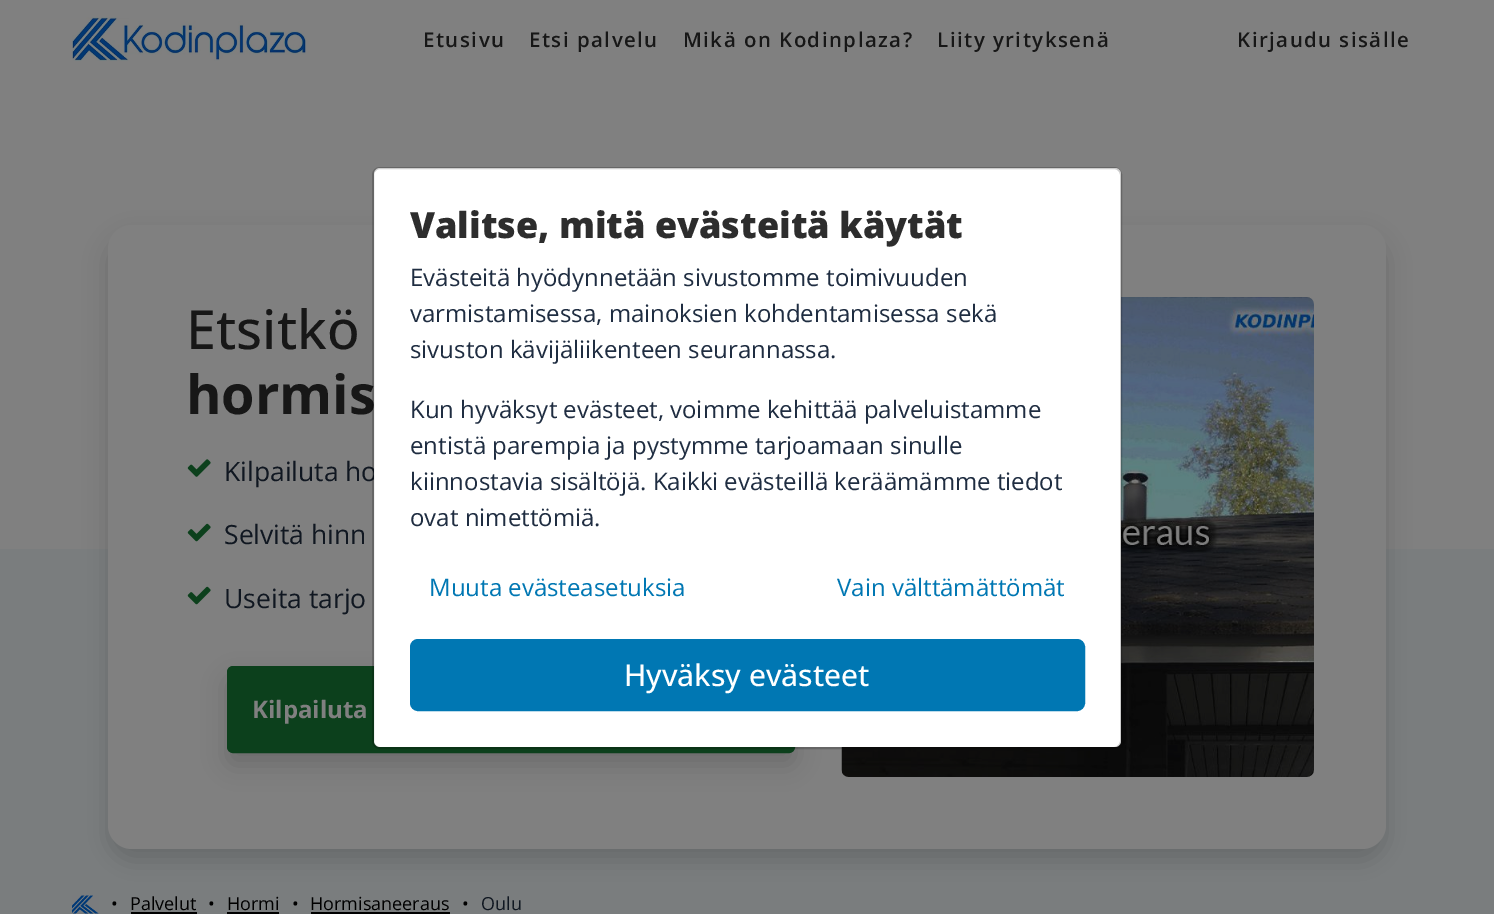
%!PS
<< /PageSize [1494 914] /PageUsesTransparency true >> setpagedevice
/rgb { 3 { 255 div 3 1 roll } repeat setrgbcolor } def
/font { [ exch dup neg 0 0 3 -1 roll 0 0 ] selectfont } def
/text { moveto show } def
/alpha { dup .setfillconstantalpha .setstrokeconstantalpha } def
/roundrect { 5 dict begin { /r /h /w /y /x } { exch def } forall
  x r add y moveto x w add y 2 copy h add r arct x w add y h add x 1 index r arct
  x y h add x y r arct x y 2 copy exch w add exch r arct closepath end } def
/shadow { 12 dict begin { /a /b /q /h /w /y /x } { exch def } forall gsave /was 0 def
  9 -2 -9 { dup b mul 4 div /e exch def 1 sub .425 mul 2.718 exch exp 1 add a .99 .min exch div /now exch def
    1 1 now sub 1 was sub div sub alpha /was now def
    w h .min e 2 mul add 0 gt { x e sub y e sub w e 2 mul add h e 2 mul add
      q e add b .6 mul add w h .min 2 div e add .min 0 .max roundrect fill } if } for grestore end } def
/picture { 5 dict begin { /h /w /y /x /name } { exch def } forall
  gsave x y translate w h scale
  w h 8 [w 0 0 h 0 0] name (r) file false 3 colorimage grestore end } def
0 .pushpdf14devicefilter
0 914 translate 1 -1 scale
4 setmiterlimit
128 128 128 rgb
0 0 1494 914 rectfill
(img_01.rgb) 72 17 234 44 picture
122 125 126 rgb
0 549 1494 365 rectfill
(img_05.rgb) 72 895 27 19 picture
0 0 0 rgb
108 237 1278 624 24 12 0.15 shadow
128 128 128 rgb
108 225 1278 624 24 roundrect fill
(img_02.rgb) 187 459 24 18 picture
(img_03.rgb) 187 523 24 19 picture
(img_03.rgb) 187 586 24 19 picture
0 0 0 rgb
227 678 568 87 6 12 0.15 shadow
12 64 28 rgb
228 667 566 85 5 roundrect gsave fill grestore
2 setlinewidth
stroke
(img_04.rgb) 841 297 473 480 picture
0 0 0 rgb
131 912 66 2 rectfill
227 912 52 2 rectfill
311 912 139 2 rectfill
/OpenSans-SemiBold 20.4 font
23 23 23 rgb
423 47 moveto 1.5 0 (Etusivu) ashow
529 47 moveto 1.5 0 (Etsi palvelu) ashow
683 47 moveto 1.5 0 (Mikä on Kodinplaza?) ashow
937 47 moveto 1.5 0 (Liity yrityksenä) ashow
1237 47 moveto 1.5 0 (Kirjaudu sisälle) ashow
/OpenSans-Medium 54 font
(Etsitkö) 186 349 text
/OpenSans-Bold 54 font
(hormis) 186 414 text
/OpenSans-Regular 26.5 font
16 23 33 rgb
(Kilpailuta ho) 224 481 text
(Selvitä hinn) 224 544 text
(Useita tarjo) 224 608 text
/OpenSans-Bold 24 font
128 128 128 rgb
(Kilpailuta) 252 718 text
255 255 255 rgb
374 168 747 579 6 roundrect fill
0.2 alpha
0 0 0 rgb
373 168 748 580 7 roundrect stroke
/OpenSans-ExtraBold 36 font
1 alpha
45 45 45 rgb
(Valitse, mitä evästeitä käytät) 410 238 text
/OpenSans-Regular 24 font
31 45 65 rgb
(Evästeitä hyödynnetään sivustomme toimivuuden) 410 286 text
(varmistamisessa, mainoksien kohdentamisessa sekä) 410 322 text
(sivuston kävijäliikenteen seurannassa.) 410 358 text
(Kun hyväksyt evästeet, voimme kehittää palveluistamme) 410 418 text
(entistä parempia ja pystymme tarjoamaan sinulle) 410 454 text
(kiinnostavia sisältöjä. Kaikki evästeillä keräämämme tiedot) 410 490 text
(ovat nimettömiä.) 410 526 text
0 119 179 rgb
(Muuta evästeasetuksia) 429 596 text
(Vain välttämättömät) 837 596 text
411 640 673 70 7 roundrect gsave fill grestore
stroke
/OpenSans-Medium 30 font
255 255 255 rgb
(Hyväksy evästeet) 624 686 text
/OpenSans-Regular 18 font
0 0 0 rgb
(•) 111 910 text
(Palvelut) 130 910 text
(•) 208 910 text
(Hormi) 227 910 text
(•) 292 910 text
(Hormisaneeraus) 310 910 text
(•) 462 910 text
16 23 33 rgb
(Oulu) 481 910 text
.poppdf14devicefilter showpage
